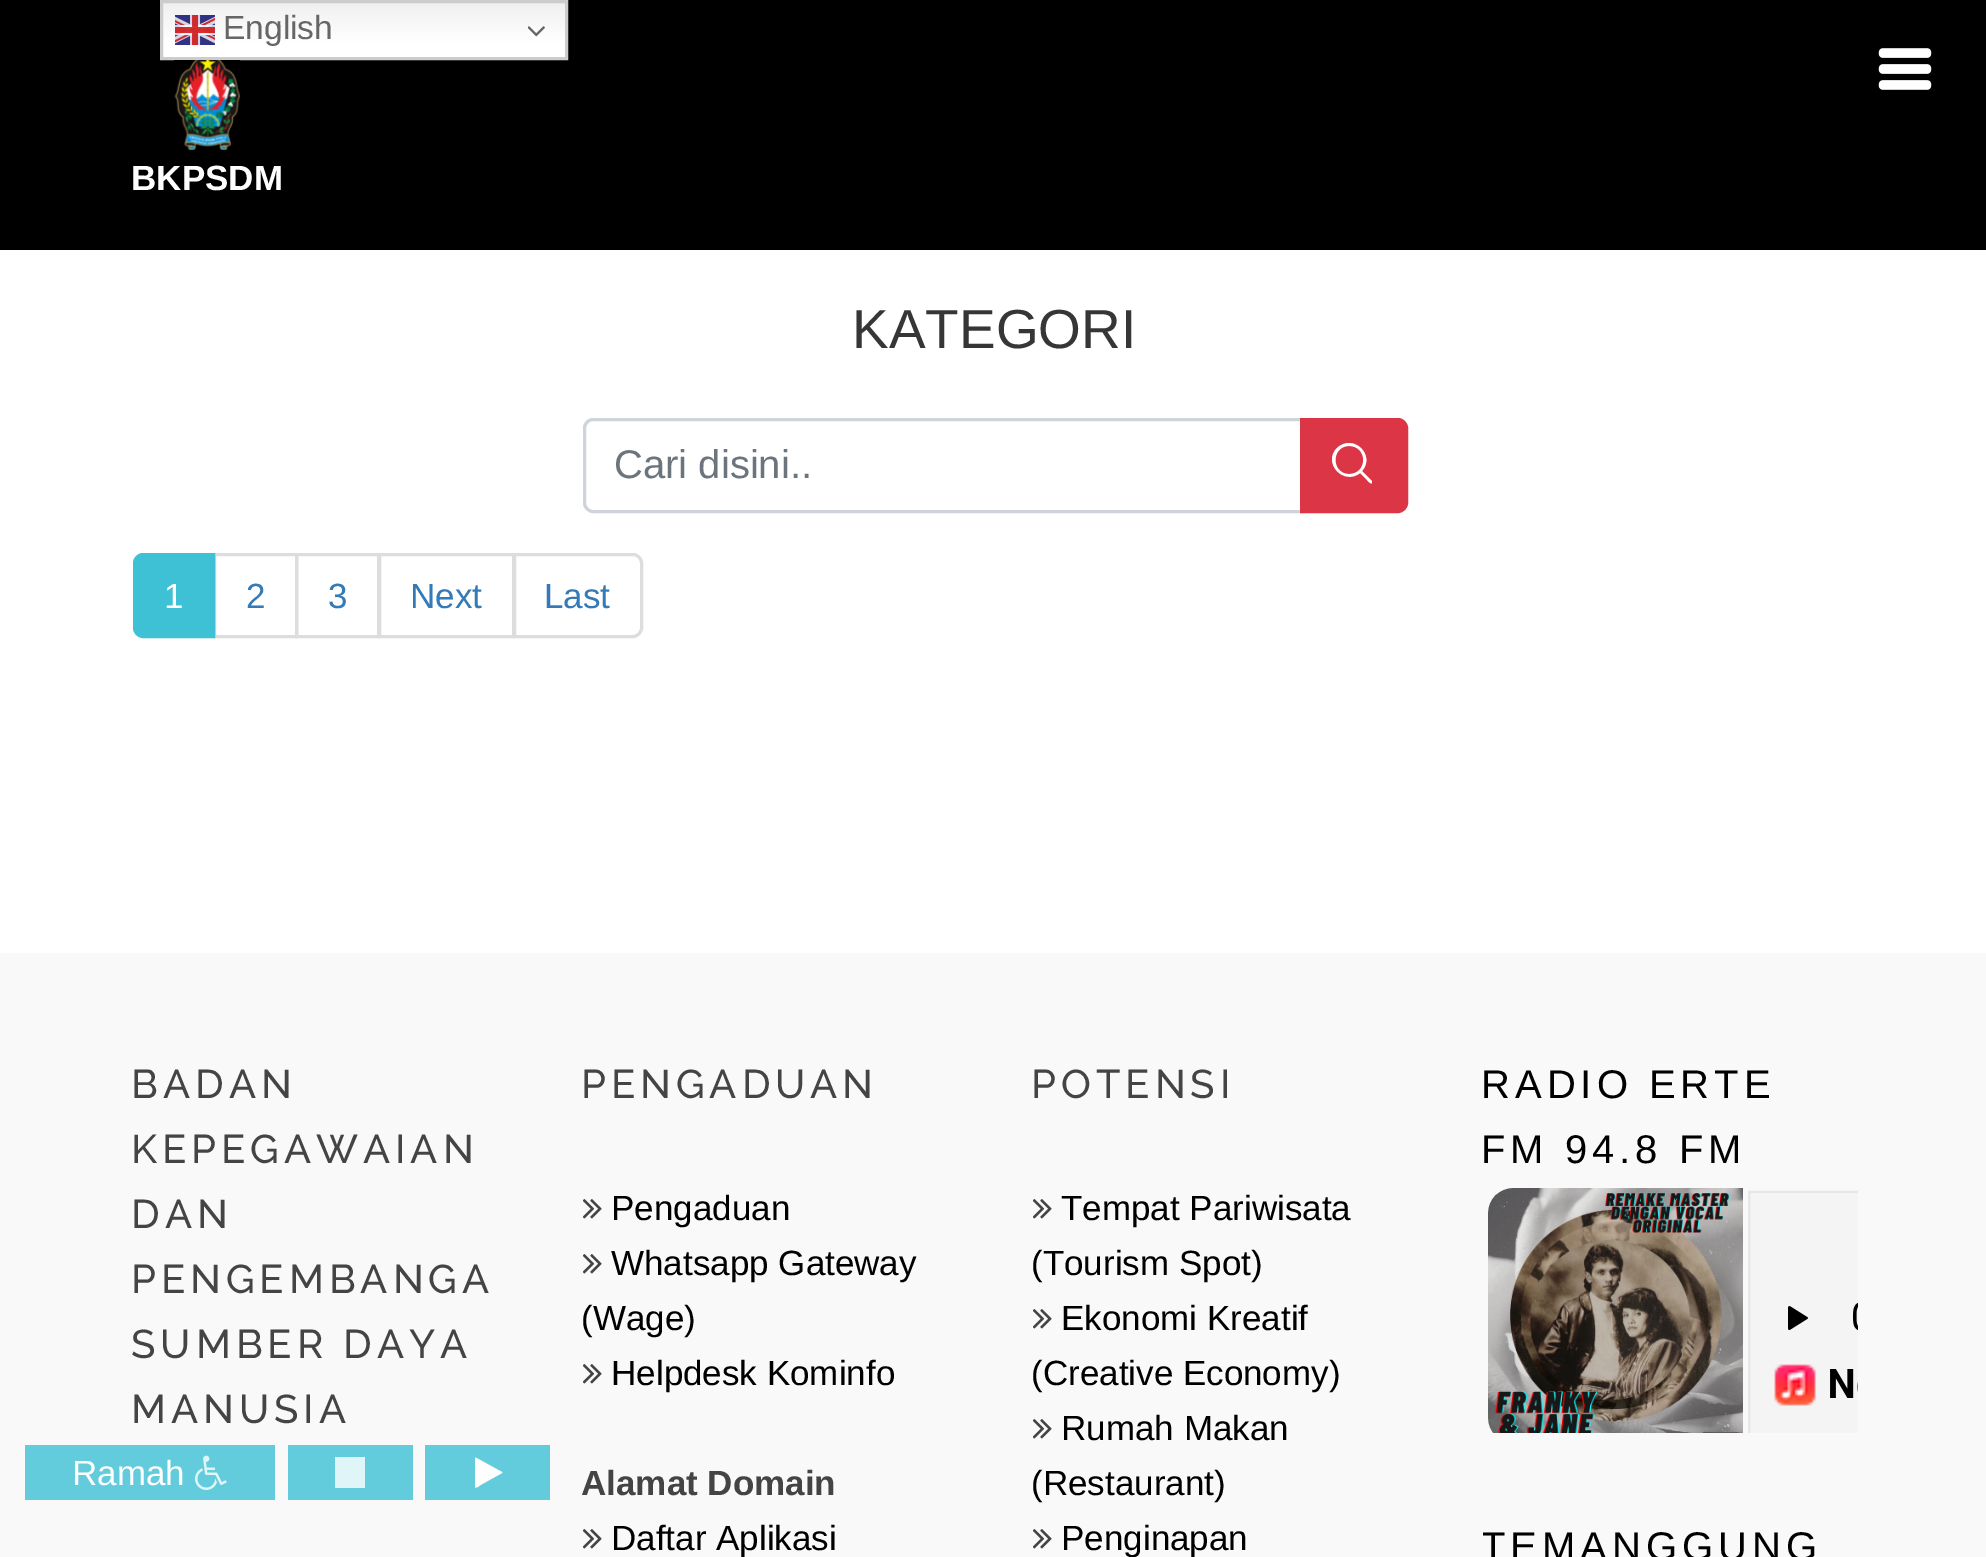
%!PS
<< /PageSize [1986 1557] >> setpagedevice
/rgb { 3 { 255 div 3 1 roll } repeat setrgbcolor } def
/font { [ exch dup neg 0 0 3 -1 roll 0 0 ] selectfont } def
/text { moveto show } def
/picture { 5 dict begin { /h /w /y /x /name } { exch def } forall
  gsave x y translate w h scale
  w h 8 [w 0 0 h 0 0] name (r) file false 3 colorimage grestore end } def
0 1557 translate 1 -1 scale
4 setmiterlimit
255 255 255 rgb
0 0 1986 1557 rectfill
0 0 0 rgb
0 0 1986 250 rectfill
gsave 163 3 moveto 402 0 rlineto 0 54 rlineto -402 0 rlineto closepath clip newpath
<< /ShadingType 2 /ColorSpace /DeviceRGB /Coords [364 0 364 60] /Extend [true true] /Function << /FunctionType 3 /Domain [0 1] /Functions [<< /FunctionType 2 /Domain [0 1] /C0 [0.937 0.937 0.937] /C1 [1 1 1] /N 1 >> << /FunctionType 2 /Domain [0 1] /C0 [1 1 1] /C1 [1 1 1] /N 1 >>] /Bounds [0.7] /Encode [0 1 0 1] >> >> shfill grestore
204 204 204 rgb
3 setlinewidth
161.5 1.5 405 57 rectstroke
(img_01.rgb) 175 15 40 30 picture
(img_02.rgb) 528 26 17 11 picture
(img_03.rgb) 1878 48 54 42 picture
(img_04.rgb) 174 60 66 90 picture
206 212 218 rgb
593 419.5 moveto 708.5 0 rlineto 0 92 rlineto -708.5 0 rlineto -4.5 0 -8.5 -4 -8.5 -8.5 rcurveto 0 -75 rlineto 0 -4.5 4 -8.5 8.5 -8.5 rcurveto closepath stroke
220 53 69 rgb
1301.5 419.5 moveto 96.5 0 rlineto 4.5 0 8.5 4 8.5 8.5 rcurveto 0 75 rlineto 0 4.5 -4 8.5 -8.5 8.5 rcurveto -96.5 0 rlineto closepath gsave fill grestore
stroke
255 255 255 rgb
1372 481 moveto -10 -10 rlineto 14 -16 -9 -38 -25 -23 rcurveto -15 15 7 38 23 25 rcurveto 7 7 rlineto 0 0 4 5 5 3 rcurveto closepath 1349 474 moveto -18 0 -18 -28 0 -28 rcurveto 19 0 19 28 0 28 rcurveto closepath fill
221 221 221 rgb
214.5 554.5 82 82 rectstroke
62 193 213 rgb
143 554.5 moveto 70.5 0 rlineto 0 82 rlineto -70.5 0 rlineto -4.5 0 -8.5 -4 -8.5 -8.5 rcurveto 0 -65 rlineto 0 -4.5 4 -8.5 8.5 -8.5 rcurveto closepath gsave fill grestore
stroke
221 221 221 rgb
296.5 554.5 82 82 rectstroke
379.5 554.5 134 82 rectstroke
255 255 255 rgb
514.5 554.5 moveto 118.5 0 rlineto 4.5 0 8.5 4 8.5 8.5 rcurveto 0 65 rlineto 0 4.5 -4 8.5 -8.5 8.5 rcurveto -118.5 0 rlineto closepath gsave fill grestore
221 221 221 rgb
stroke
249 249 249 rgb
0 953 1986 604 rectfill
(img_05.rgb) 583 1199 19 20 picture
(img_05.rgb) 583 1254 19 20 picture
(img_05.rgb) 583 1364 19 20 picture
(img_05.rgb) 583 1529 19 20 picture
(img_05.rgb) 1033 1199 19 20 picture
(img_05.rgb) 1033 1309 19 20 picture
(img_05.rgb) 1033 1419 19 20 picture
(img_05.rgb) 1033 1529 19 20 picture
(img_06.rgb) 1488 1188 370 245 picture
99 204 220 rgb
25 1445 250 55 rectfill
(img_07.rgb) 195 1455 32 35 picture
288 1445 125 55 rectfill
224 245 248 rgb
335 1457 30 31 rectfill
99 204 220 rgb
425 1445 125 55 rectfill
254 254 254 rgb
502 1473 moveto -21.5 12 rlineto -0.5 0.5 -4.5 3.5 -5.5 2.5 rcurveto 0 -29.5 rlineto 0.5 -0.5 rlineto 26.5 14.5 rlineto 0.5 0.5 rlineto closepath fill
/LiberationSans-Regular 33.5 font
102 102 102 rgb
(English) 223 39 text
/LiberationSans-Bold 35 font
254 254 254 rgb
(BKPSDM) 131 190 text
/LiberationSans-Regular 55 font
54 54 54 rgb
(KATEGORI) 852 348 text
/LiberationSans-Regular 40 font
108 117 125 rgb
(Cari disini..) 614 478 text
/LiberationSans-Regular 35 font
254 254 254 rgb
(1) 164 608 text
51 122 183 rgb
(2) 246 608 text
(3) 328 608 text
(Next) 410 608 text
(Last) 544 608 text
/Raleway-Medium 40 font
68 68 68 rgb
131 1098 moveto 5 0 (BADAN) ashow
131 1163 moveto 5 0 (KEPEGAWAIAN) ashow
131 1228 moveto 5 0 (DAN) ashow
131 1293 moveto 5 0 (PENGEMBANGA) ashow
131 1358 moveto 5 0 (SUMBER DAYA) ashow
131 1423 moveto 5 0 (MANUSIA) ashow
581 1098 moveto 5 0 (PENGADUAN) ashow
/LiberationSans-Regular 35 font
0 0 0 rgb
(Pengaduan) 611 1220 text
(Whatsapp Gateway) 611 1275 text
(\(Wage\)) 581 1330 text
(Helpdesk Kominfo) 611 1385 text
/LiberationSans-Bold 35 font
68 68 68 rgb
(Alamat Domain) 581 1495 text
/LiberationSans-Regular 35 font
0 0 0 rgb
(Daftar Aplikasi) 611 1550 text
/Raleway-Medium 40 font
68 68 68 rgb
1031 1098 moveto 5 0 (POTENSI) ashow
/LiberationSans-Regular 35 font
0 0 0 rgb
(Tempat Pariwisata) 1061 1220 text
(\(Tourism Spot\)) 1031 1275 text
(Ekonomi Kreatif) 1061 1330 text
(\(Creative Economy\)) 1031 1385 text
(Rumah Makan) 1061 1440 text
(\(Restaurant\)) 1031 1495 text
(Penginapan) 1061 1550 text
/LiberationSans-Regular 40 font
1481 1098 moveto 5 0 (RADIO ERTE) ashow
1481 1163 moveto 5 0 (FM 94.8 FM) ashow
gsave
1483 1053 375 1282 rectclip
1481 1560 moveto 5 0 (TEMANGGUNG) ashow
grestore
/LiberationSans-Regular 35 font
254 254 254 rgb
(Ramah) 72 1485 text
showpage
